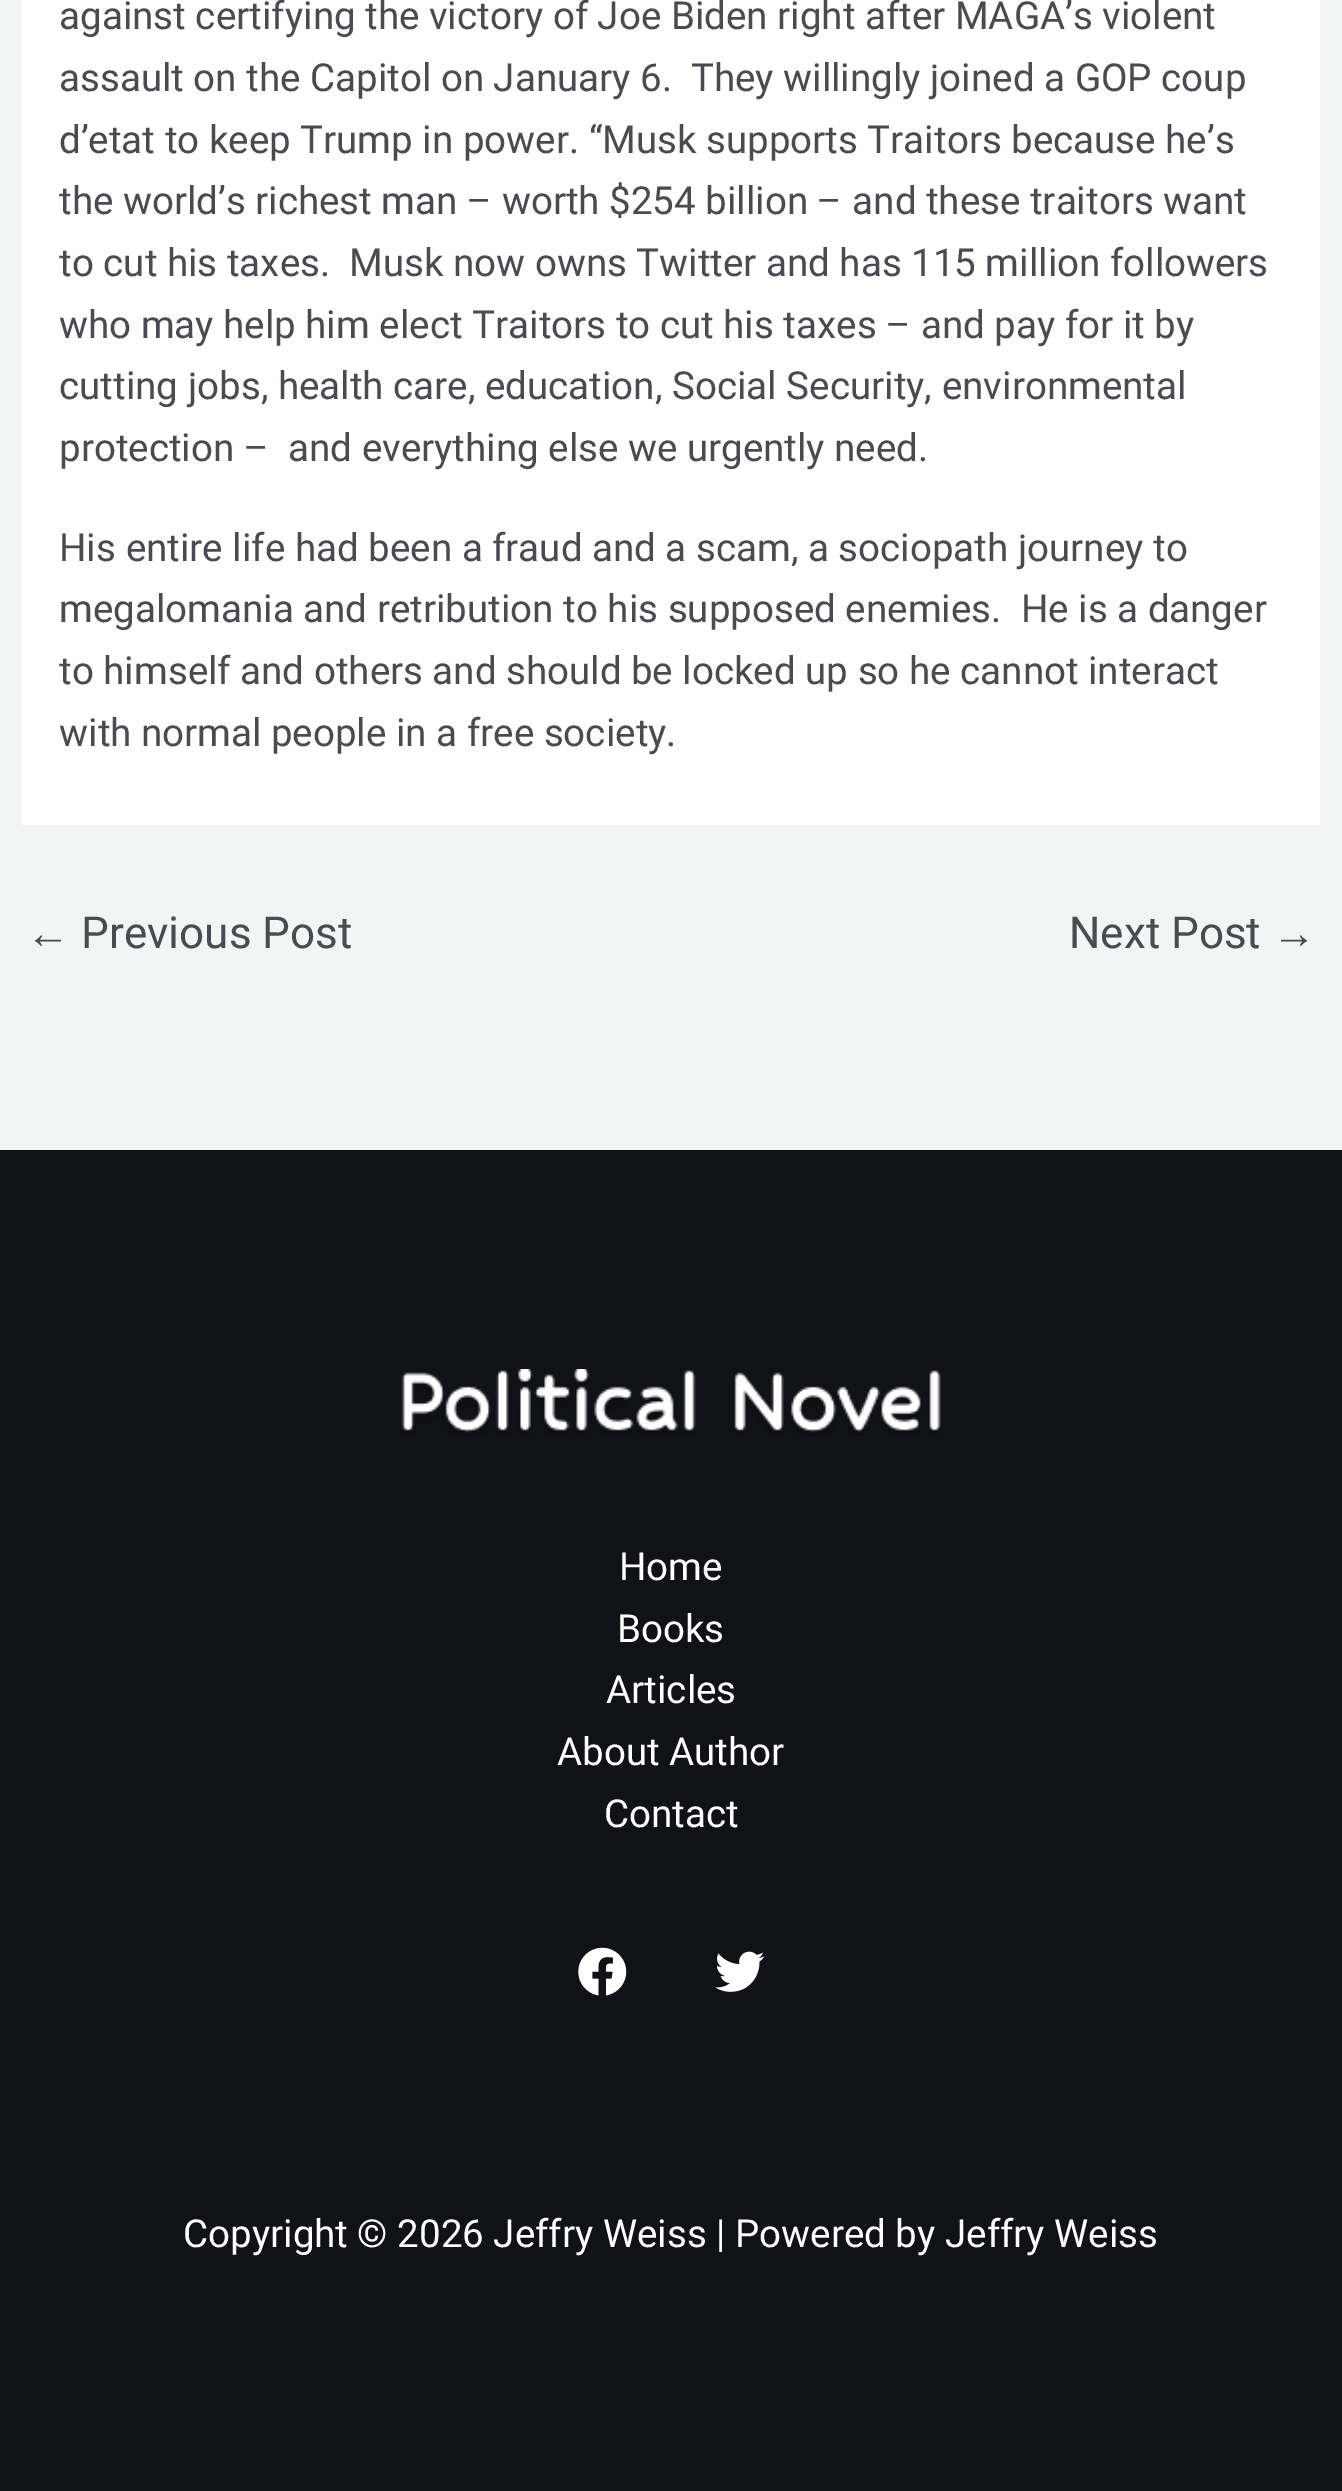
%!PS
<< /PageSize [1342 2491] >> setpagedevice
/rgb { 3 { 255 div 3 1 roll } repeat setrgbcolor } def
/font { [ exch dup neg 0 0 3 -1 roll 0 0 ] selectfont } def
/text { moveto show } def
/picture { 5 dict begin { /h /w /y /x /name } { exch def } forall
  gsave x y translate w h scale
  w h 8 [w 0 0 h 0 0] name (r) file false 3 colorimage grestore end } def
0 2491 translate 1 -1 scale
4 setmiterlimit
243 245 245 rgb
0 0 1342 2491 rectfill
255 255 255 rgb
22 0 1298 825 rectfill
16 18 24 rgb
0 1150 1342 1341 rectfill
(img_01.rgb) 401 1369 540 67 picture
(img_02.rgb) 578 1947 49 49 picture
(img_03.rgb) 715 1951 50 41 picture
/Heebo-Regular 38.5 font
73 75 81 rgb
(against certifying the victory of Joe Biden right after MAGA’s violent) 59 29 text
(assault on the Capitol on January 6.  They willingly joined a GOP coup) 59 91 text
(d’etat to keep Trump in power. “Musk supports Traitors because he’s) 59 153 text
(the world’s richest man – worth $254 billion – and these traitors want) 59 214 text
(to cut his taxes.  Musk now owns Twitter and has 115 million followers) 59 276 text
(who may help him elect Traitors to cut his taxes – and pay for it by) 59 338 text
(cutting jobs, health care, education, Social Security, environmental) 59 399 text
(protection –  and everything else we urgently need.) 59 461 text
(His entire life had been a fraud and a scam, a sociopath journey to) 59 561 text
(megalomania and retribution to his supposed enemies.  He is a danger) 59 622 text
(to himself and others and should be locked up so he cannot interact) 59 684 text
(with normal people in a free society.) 59 746 text
/LiberationSans-Regular 44 font
(←) 26 948 text
/Heebo-Regular 44 font
(Previous Post) 81 948 text
(Next Post) 1069 948 text
/LiberationSans-Regular 44 font
(→) 1272 948 text
/Heebo-Regular 38.5 font
255 255 255 rgb
(Home) 619 1580 text
(Books) 617 1642 text
(Articles) 606 1703 text
(About Author) 557 1765 text
(Contact) 604 1827 text
(Copyright © 2026 Jeffry Weiss | Powered by Jeffry Weiss) 183 2247 text
showpage
